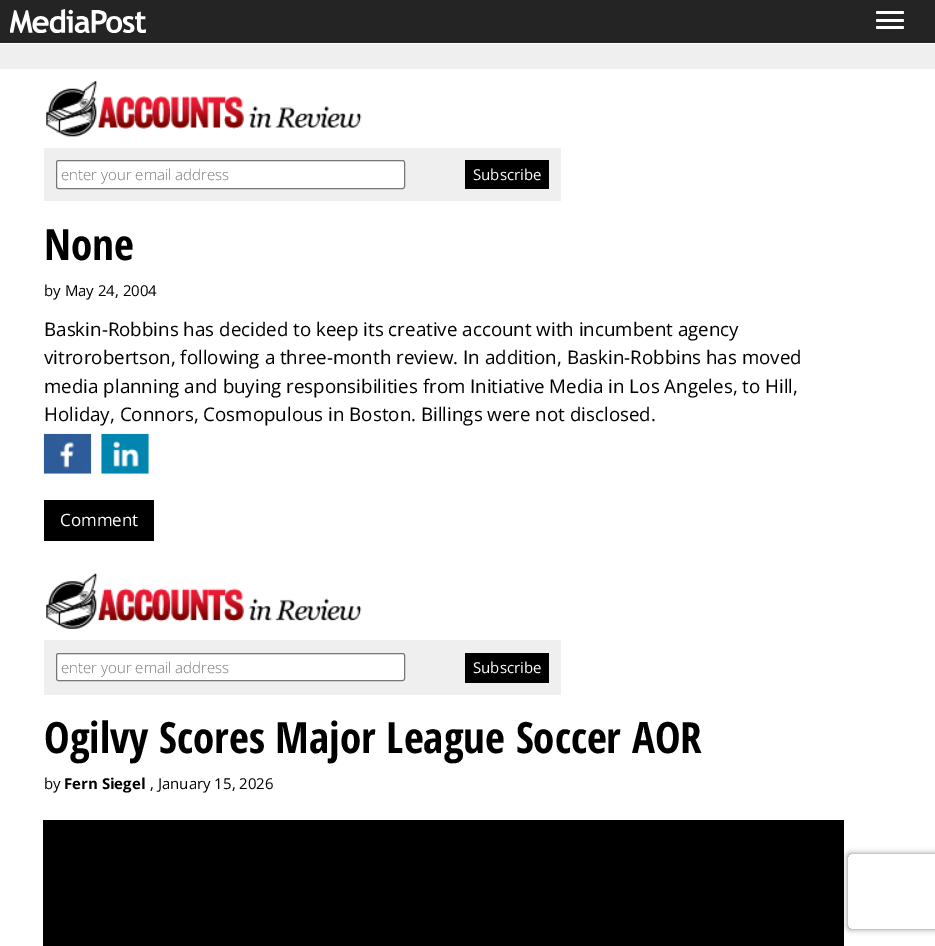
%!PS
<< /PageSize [935 946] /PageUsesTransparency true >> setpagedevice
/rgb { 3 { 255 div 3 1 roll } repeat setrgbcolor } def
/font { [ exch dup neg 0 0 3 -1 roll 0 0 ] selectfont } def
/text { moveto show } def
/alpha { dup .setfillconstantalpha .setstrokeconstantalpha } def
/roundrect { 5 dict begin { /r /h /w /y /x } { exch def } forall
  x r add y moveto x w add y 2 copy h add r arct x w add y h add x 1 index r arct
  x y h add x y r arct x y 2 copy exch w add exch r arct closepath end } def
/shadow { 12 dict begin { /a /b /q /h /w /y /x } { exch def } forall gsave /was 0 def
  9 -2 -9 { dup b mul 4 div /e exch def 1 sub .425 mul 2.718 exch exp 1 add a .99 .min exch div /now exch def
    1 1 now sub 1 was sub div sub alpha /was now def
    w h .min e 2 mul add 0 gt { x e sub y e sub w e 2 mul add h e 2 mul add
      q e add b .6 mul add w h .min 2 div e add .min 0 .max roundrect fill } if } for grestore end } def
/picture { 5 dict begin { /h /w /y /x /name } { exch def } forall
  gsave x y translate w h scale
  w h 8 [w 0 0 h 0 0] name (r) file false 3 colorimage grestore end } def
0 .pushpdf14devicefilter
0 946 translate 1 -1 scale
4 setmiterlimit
255 255 255 rgb
0 0 935 946 rectfill
36 36 36 rgb
0 0 935 43 rectfill
(img_01.rgb) 10 9 136 24 picture
255 255 255 rgb
876 11 28 3 1.5 roundrect fill
876 19 28 3 1.5 roundrect fill
876 26 28 3 1.5 roundrect fill
239 239 239 rgb
0 44 935 25 rectfill
(img_02.rgb) 46 81 316 56 picture
44 148 517 53 rectfill
255 255 255 rgb
56.5 160.5 348 28 2 roundrect gsave fill grestore
118 118 118 rgb
stroke
0 0 0 rgb
465 160 84 29 rectfill
gsave
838 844 moveto 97 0 rlineto 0 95 rlineto -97 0 rlineto closepath 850.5 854 moveto 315 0 rlineto 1.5 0 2.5 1 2.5 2.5 rcurveto 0 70 rlineto 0 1.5 -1 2.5 -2.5 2.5 rcurveto -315 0 rlineto -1.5 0 -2.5 -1 -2.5 -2.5 rcurveto 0 -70 rlineto 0 -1.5 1 -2.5 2.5 -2.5 rcurveto closepath eoclip newpath
128 128 128 rgb
848 854 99 75 2.5 3 1 shadow
grestore
(img_03.rgb) 43 433 49 41 picture
(img_04.rgb) 101 433 48 41 picture
44 500 110 41 rectfill
(img_05.rgb) 46 573 316 56 picture
239 239 239 rgb
44 640 517 55 rectfill
255 255 255 rgb
56.5 653.5 348 27 2 roundrect gsave fill grestore
118 118 118 rgb
stroke
0 0 0 rgb
465 653 84 30 rectfill
43 820 801 126 rectfill
/OpenSans-Light 15 font
117 117 117 rgb
(enter your email address) 61 180 text
/OpenSans-Regular 15 font
255 255 255 rgb
(Subscribe) 473 180 text
/OpenSansCondensed-Bold 43.1 font
0 0 0 rgb
(None) 44 260 text
/OpenSans-Regular 15 font
(by May 24, 2004) 44 296 text
/OpenSans-Regular 18.75 font
(Baskin-Robbins has decided to keep its creative account with incumbent agency) 44 336 text
(vitrorobertson, following a three-month review. In addition, Baskin-Robbins has moved) 44 364 text
(media planning and buying responsibilities from Initiative Media in Los Angeles, to Hill,) 44 393 text
(Holiday, Connors, Cosmopulous in Boston. Billings were not disclosed.) 44 421 text
/OpenSans-Regular 17 font
255 255 255 rgb
(Comment) 60 526 text
/OpenSans-Light 15 font
117 117 117 rgb
(enter your email address) 61 673 text
/OpenSans-Regular 15 font
255 255 255 rgb
(Subscribe) 473 673 text
/OpenSansCondensed-Bold 43.1 font
0 0 0 rgb
(Ogilvy Scores Major League Soccer AOR) 44 753 text
/OpenSans-Regular 15 font
(by) 44 789 text
/OpenSans-Bold 15 font
(Fern Siegel) 64 789 text
/OpenSans-Regular 15 font
(, January 15, 2026) 150 789 text
.poppdf14devicefilter showpage
